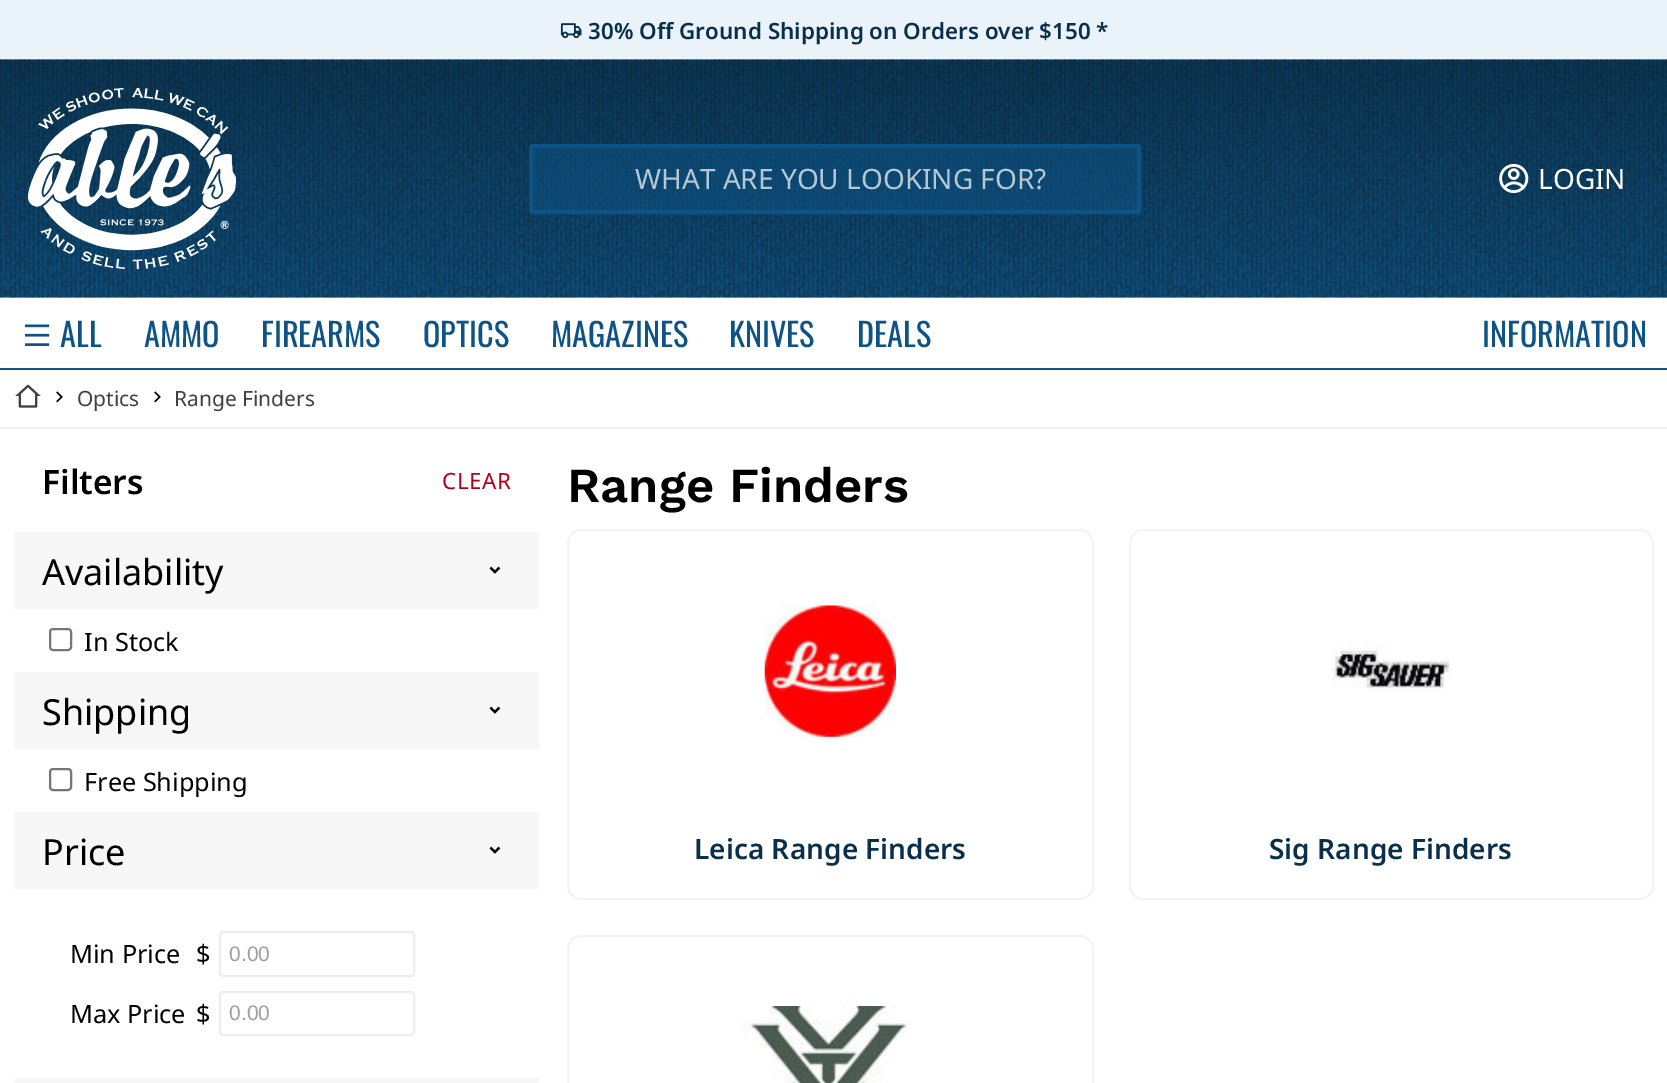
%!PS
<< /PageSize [1667 1083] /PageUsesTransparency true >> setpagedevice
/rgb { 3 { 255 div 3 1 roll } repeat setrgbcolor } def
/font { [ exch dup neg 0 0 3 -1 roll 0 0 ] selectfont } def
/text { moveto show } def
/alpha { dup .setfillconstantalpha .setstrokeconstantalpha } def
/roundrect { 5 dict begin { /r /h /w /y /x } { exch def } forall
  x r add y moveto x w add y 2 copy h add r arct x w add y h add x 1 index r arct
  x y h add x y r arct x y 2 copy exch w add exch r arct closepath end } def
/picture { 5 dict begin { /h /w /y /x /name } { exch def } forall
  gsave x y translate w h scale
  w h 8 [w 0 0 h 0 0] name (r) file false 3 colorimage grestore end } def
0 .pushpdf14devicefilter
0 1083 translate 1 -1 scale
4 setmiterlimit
255 255 255 rgb
0 0 1667 1083 rectfill
234 243 249 rgb
0 0 1667 60 rectfill
(img_01.rgb) 560 23 22 16 picture
(img_02.rgb) 0 59 1667 239 picture
(img_03.rgb) 0 59 1667 239 picture
(img_04.rgb) 28 88 208 182 picture
0.5 alpha
13 83 133 rgb
531 146 608 66 2 roundrect fill
1 alpha
4 setlinewidth
531 146 608 66 2 roundrect stroke
(img_05.rgb) 1499 163 30 31 picture
0 368 1667 2 rectfill
(img_06.rgb) 25 324 25 22 picture
238 238 238 rgb
0 427 1667 2 rectfill
(img_07.rgb) 15 384 26 24 picture
(img_08.rgb) 56 391 7 12 picture
(img_08.rgb) 154 391 7 12 picture
247 247 247 rgb
14 532 525 77 rectfill
(img_09.rgb) 489 566 12 8 picture
118 118 118 rgb
2 setlinewidth
50 629 21 21 3 roundrect stroke
247 247 247 rgb
14 672 525 77 rectfill
(img_09.rgb) 489 706 12 8 picture
118 118 118 rgb
50 769 21 21 3 roundrect stroke
247 247 247 rgb
14 812 525 77 rectfill
(img_09.rgb) 489 846 12 8 picture
238 238 238 rgb
220 932 194 44 3 roundrect stroke
220 992 194 43 3 roundrect stroke
247 247 247 rgb
14 1078 525 5 rectfill
243 243 243 rgb
568 530 525 369 13 roundrect stroke
(img_10.rgb) 764 605 132 132 picture
1130 530 523 369 13 roundrect stroke
(img_11.rgb) 1332 646 122 43 picture
568 936 525 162 13 roundrect stroke
(img_12.rgb) 742 1006 168 77 picture
/NotoSans-SemiBold 22.4 font
9 47 74 rgb
(30% Off Ground Shipping on Orders over $150 *) 588 39 text
/NotoSans-Regular 28 font
179 200 215 rgb
(WHAT ARE YOU LOOKING FOR?) 635 189 text
255 255 255 rgb
(LOGIN) 1538 189 text
/Oswald-Regular 32.25 font
13 83 133 rgb
(ALL) 60 347 text
(AMMO) 144 347 text
(FIREARMS) 261 347 text
(OPTICS) 423 347 text
(MAGAZINES) 551 347 text
(KNIVES) 729 347 text
(DEALS) 857 347 text
(INFORMATION) 1482 347 text
/NotoSans-Regular 21 font
64 64 64 rgb
(Optics) 77 406 text
(Range Finders) 174 406 text
/NotoSans-SemiBold 33.5 font
0 0 0 rgb
(Filters) 42 494 text
/NotoSans-Regular 22.4 font
178 0 26 rgb
442 489 moveto 0.5 0 (CLEAR) ashow
/NotoSans-Regular 36 font
0 0 0 rgb
(Availability) 42 585 text
/NotoSans-Regular 25.25 font
(In Stock) 84 651 text
/NotoSans-Regular 36 font
(Shipping) 42 725 text
/NotoSans-Regular 25.25 font
(Free Shipping) 84 791 text
/NotoSans-Regular 36 font
(Price) 42 865 text
/NotoSans-Regular 25.25 font
(Min Price) 70 963 text
($) 196 963 text
/LiberationSans-Regular 21 font
158 158 158 rgb
(0.00) 229 961 text
/NotoSans-Regular 25.25 font
0 0 0 rgb
(Max Price) 70 1023 text
($) 196 1023 text
/LiberationSans-Regular 21 font
158 158 158 rgb
(0.00) 229 1020 text
/WorkSans-SemiBold 49 font
0 0 0 rgb
(Range Finders) 567 502 text
/NotoSans-SemiBold 28 font
9 47 74 rgb
(Leica Range Finders) 694 859 text
(Sig Range Finders) 1269 859 text
.poppdf14devicefilter showpage
